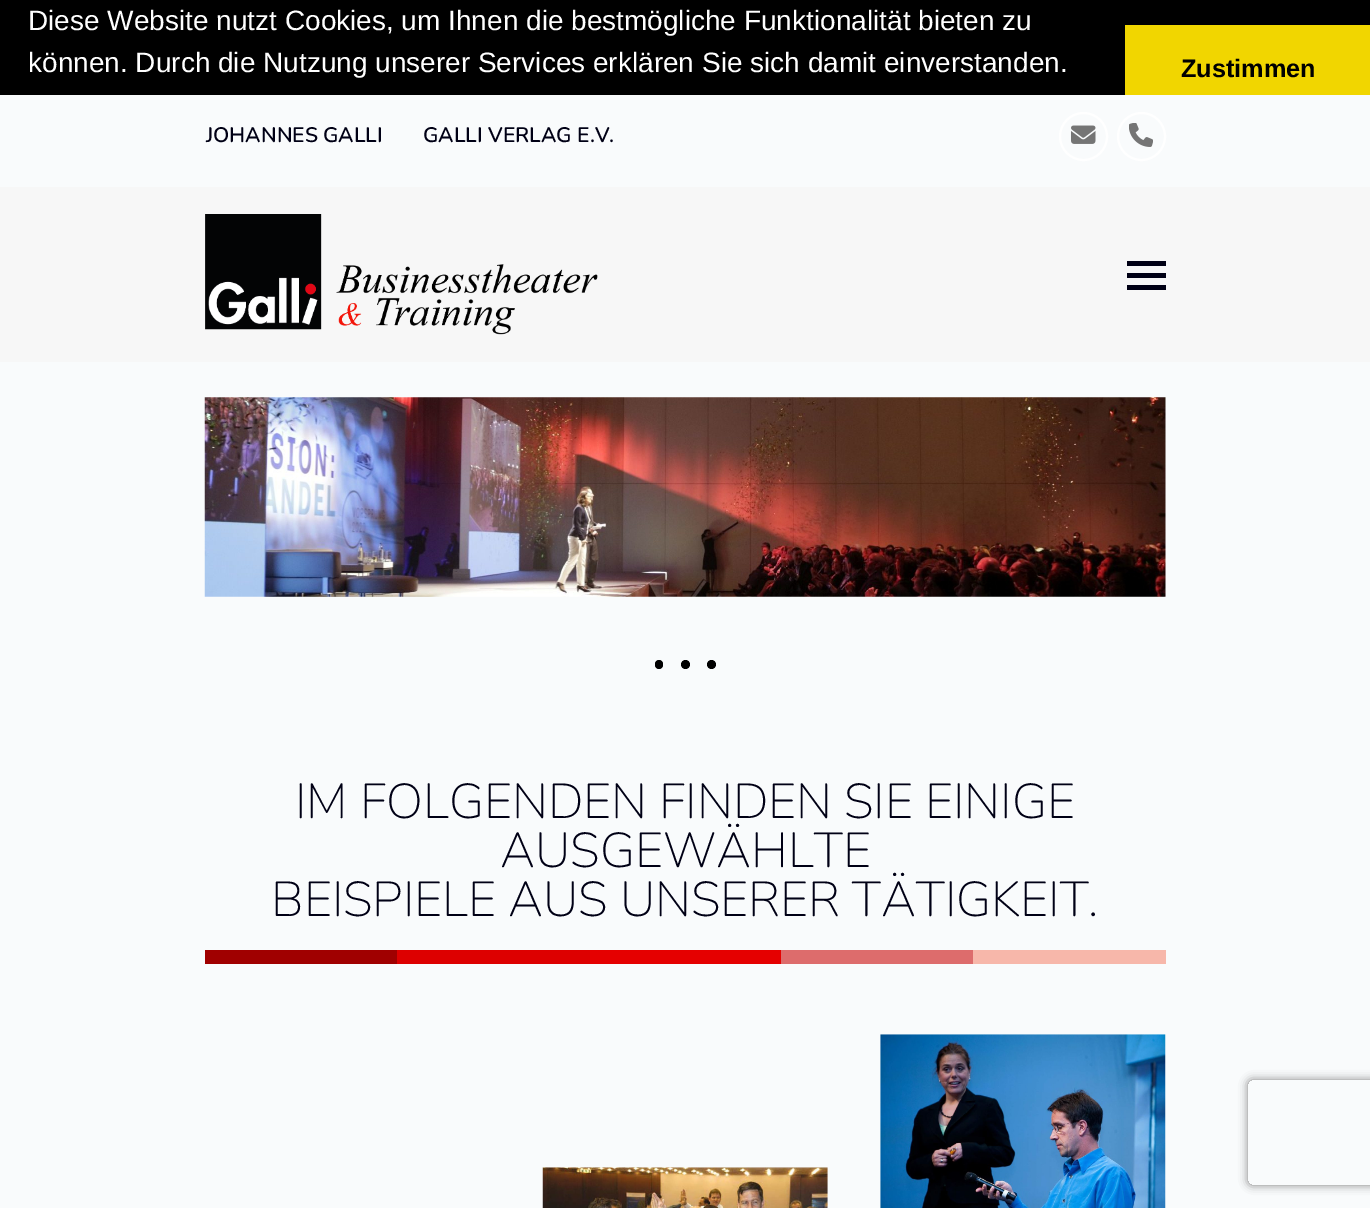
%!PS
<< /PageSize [1370 1208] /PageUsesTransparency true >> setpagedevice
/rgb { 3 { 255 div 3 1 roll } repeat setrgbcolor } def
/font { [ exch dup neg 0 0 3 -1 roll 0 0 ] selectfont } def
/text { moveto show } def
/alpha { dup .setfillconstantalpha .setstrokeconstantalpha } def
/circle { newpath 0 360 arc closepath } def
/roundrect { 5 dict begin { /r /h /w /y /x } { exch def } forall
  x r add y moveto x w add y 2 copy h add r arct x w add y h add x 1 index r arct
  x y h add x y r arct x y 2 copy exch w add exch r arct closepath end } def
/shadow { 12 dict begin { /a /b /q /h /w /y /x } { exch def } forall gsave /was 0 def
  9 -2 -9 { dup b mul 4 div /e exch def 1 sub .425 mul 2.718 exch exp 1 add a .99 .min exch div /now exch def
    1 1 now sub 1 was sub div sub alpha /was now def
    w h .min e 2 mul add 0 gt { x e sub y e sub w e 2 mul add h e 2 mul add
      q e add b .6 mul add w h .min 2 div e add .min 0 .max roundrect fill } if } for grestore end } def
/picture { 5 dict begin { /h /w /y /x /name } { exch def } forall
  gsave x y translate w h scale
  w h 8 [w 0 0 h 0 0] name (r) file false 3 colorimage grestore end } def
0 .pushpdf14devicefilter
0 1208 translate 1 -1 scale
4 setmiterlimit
249 251 252 rgb
0 0 1370 1208 rectfill
0 0 0 rgb
0 0 1370 95 rectfill
241 214 0 rgb
1125 25 245 70 rectfill
255 255 255 rgb
2 setlinewidth
1083.5 136.5 23.5 circle stroke
(img_01.rgb) 1071 125 25 19 picture
1141.5 136.5 23.5 circle stroke
(img_02.rgb) 1129 123 24 24 picture
247 247 247 rgb
0 187 1370 175 rectfill
(img_03.rgb) 205 214 393 121 picture
0 0 21 rgb
1127 273 39 5 rectfill
1127 261 39 5 rectfill
1127 285 39 5 rectfill
(img_04.rgb) 204 397 962 200 picture
0 0 0 rgb
655 660 8 9 4 roundrect fill
685.5 664.5 4.5 circle fill
711.5 664.5 4.5 circle fill
160 0 0 rgb
205 950 192 14 rectfill
221 0 0 rgb
397 950 193 14 rectfill
229 0 0 rgb
590 950 191 14 rectfill
221 108 108 rgb
781 950 192 14 rectfill
247 183 170 rgb
973 950 193 14 rectfill
(img_05.rgb) 542 1167 286 41 picture
(img_06.rgb) 880 1034 286 174 picture
gsave
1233 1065 moveto 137 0 rlineto 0 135 rlineto -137 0 rlineto closepath 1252 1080 moveto 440 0 rlineto 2 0 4 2 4 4 rcurveto 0 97 rlineto 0 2 -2 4 -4 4 rcurveto -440 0 rlineto -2 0 -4 -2 -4 -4 rcurveto 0 -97 rlineto 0 -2 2 -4 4 -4 rcurveto closepath eoclip newpath
128 128 128 rgb
1248 1080 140 105 4 4.5 1 shadow
grestore
/LiberationSans-Regular 28 font
255 255 255 rgb
(Diese Website nutzt Cookies, um Ihnen die bestmögliche Funktionalität bieten zu) 28 30 text
(können. Durch die Nutzung unserer Services erklären Sie sich damit einverstanden.) 28 72 text
/LiberationSans-Bold 25.25 font
0 0 0 rgb
(Zustimmen) 1181 77 text
/Nunito-ExtraLight 21 font
0 0 21 rgb
(JOHANNES GALLI) 206 142 text
(GALLI VERLAG E.V.) 423 142 text
/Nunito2-ExtraLight 49 font
(IM FOLGENDEN FINDEN SIE EINIGE) 295 818 text
(AUSGEWÄHLTE) 500 867 text
(BEISPIELE AUS UNSERER TÄTIGKEIT.) 271 916 text
.poppdf14devicefilter showpage
